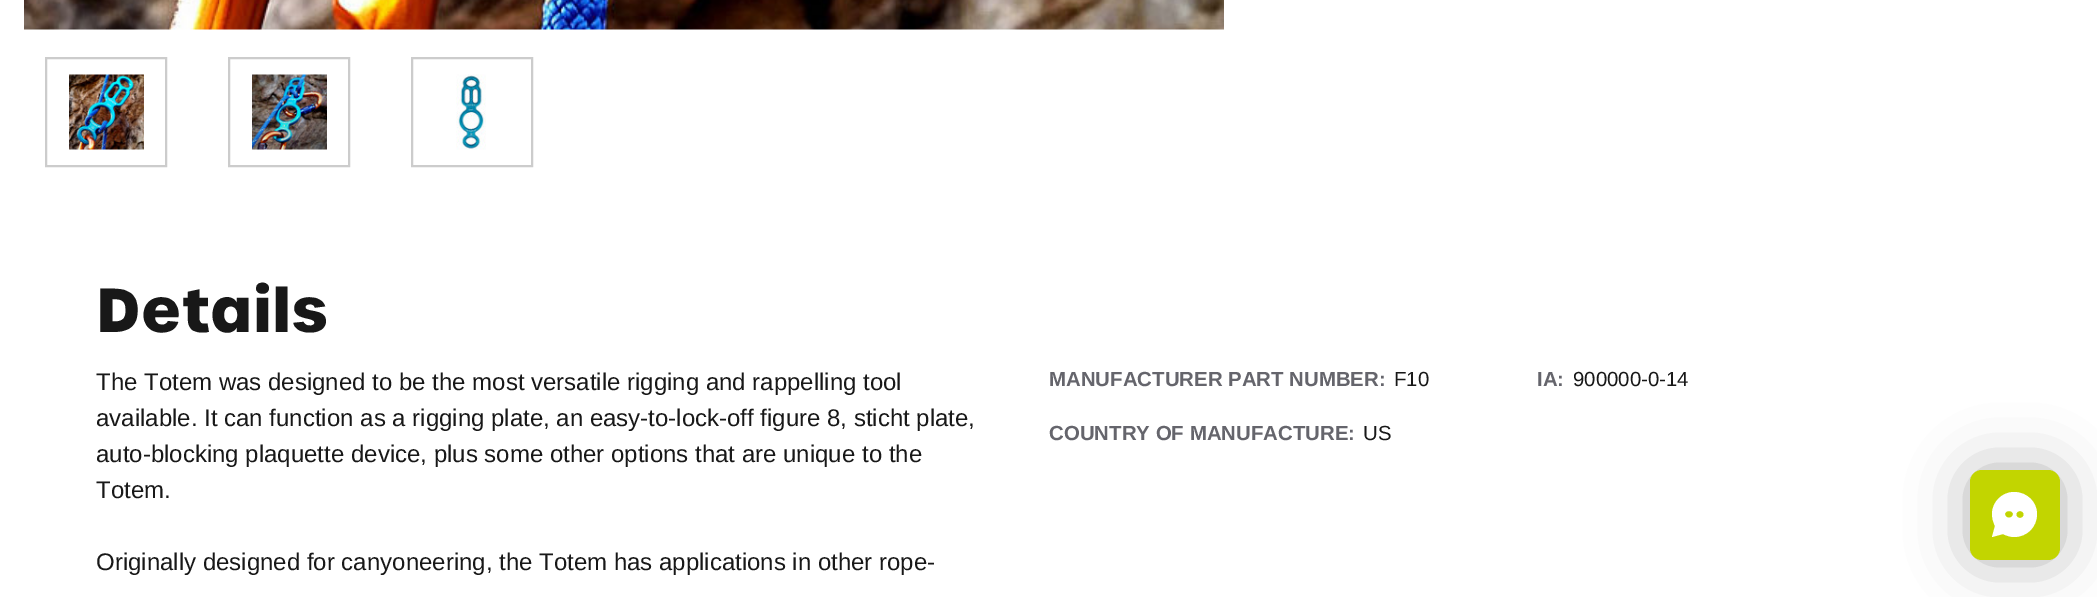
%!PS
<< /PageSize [2097 597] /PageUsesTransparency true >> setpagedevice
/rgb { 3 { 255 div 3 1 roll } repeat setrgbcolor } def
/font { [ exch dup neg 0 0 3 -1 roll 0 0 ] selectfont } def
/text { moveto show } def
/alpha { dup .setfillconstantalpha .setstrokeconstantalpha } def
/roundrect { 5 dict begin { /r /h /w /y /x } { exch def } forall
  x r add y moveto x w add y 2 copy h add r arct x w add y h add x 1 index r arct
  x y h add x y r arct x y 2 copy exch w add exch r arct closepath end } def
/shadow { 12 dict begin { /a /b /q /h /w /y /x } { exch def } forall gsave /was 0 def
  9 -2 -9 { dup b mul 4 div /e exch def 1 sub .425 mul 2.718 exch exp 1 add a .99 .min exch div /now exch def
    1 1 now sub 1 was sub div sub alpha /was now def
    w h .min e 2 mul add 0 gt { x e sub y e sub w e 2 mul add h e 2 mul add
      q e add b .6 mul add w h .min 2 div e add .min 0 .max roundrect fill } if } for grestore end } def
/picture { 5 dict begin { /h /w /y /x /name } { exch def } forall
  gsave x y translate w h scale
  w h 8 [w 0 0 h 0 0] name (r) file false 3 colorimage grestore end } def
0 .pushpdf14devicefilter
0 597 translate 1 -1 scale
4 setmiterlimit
255 255 255 rgb
0 0 2097 597 rectfill
(img_01.rgb) 24 0 1200 30 picture
204 204 204 rgb
2 setlinewidth
46 58 120 108 rectstroke
(img_02.rgb) 69 74 75 76 picture
229 58 120 108 rectstroke
(img_03.rgb) 252 74 75 76 picture
412 58 120 108 rectstroke
(img_04.rgb) 456 74 30 76 picture
0 0 0 rgb
1970 470 90 90 12 30 0.3 shadow
194 213 0 rgb
1970 470 90 90 12 roundrect fill
255 255 255 rgb
2014 537 moveto 13 0 23 -10 23 -23 rcurveto 0 -12 -10 -22 -23 -22 rcurveto -12 0 -22 10 -22 22 rcurveto 0 4 1 8 3 12 rcurveto -3 11 rlineto 11 -3 rlineto 4 2 8 3 11 3 rcurveto closepath 2013 514 moveto 0 5 -8 5 -8 0 rcurveto 0 -4 8 -4 8 0 rcurveto closepath 2020 518 moveto 5 0 5 -7 0 -7 rcurveto -5 0 -5 7 0 7 rcurveto closepath eofill
/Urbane-Bold 60 font
24 24 24 rgb
96 332 moveto 0.5 0 (Details) ashow
/LiberationSans-Regular 24 font
(The Totem was designed to be the most versatile rigging and rappelling tool) 96 390 text
(available. It can function as a rigging plate, an easy-to-lock-off figure 8, sticht plate,) 96 426 text
(auto-blocking plaquette device, plus some other options that are unique to the) 96 462 text
(Totem.) 96 498 text
(Originally designed for canyoneering, the Totem has applications in other rope-) 96 570 text
/LiberationSans-Bold 20.4 font
101 101 108 rgb
(MANUFACTURER PART NUMBER:) 1049 386 text
/LiberationSans-Regular 20.4 font
24 24 24 rgb
(F10) 1394 386 text
/LiberationSans-Bold 20.4 font
101 101 108 rgb
(IA:) 1537 386 text
/LiberationSans-Regular 20.4 font
24 24 24 rgb
(900000-0-14) 1573 386 text
/LiberationSans-Bold 20.4 font
101 101 108 rgb
(COUNTRY OF MANUFACTURE:) 1049 440 text
/LiberationSans-Regular 20.4 font
24 24 24 rgb
(US) 1363 440 text
.poppdf14devicefilter showpage
